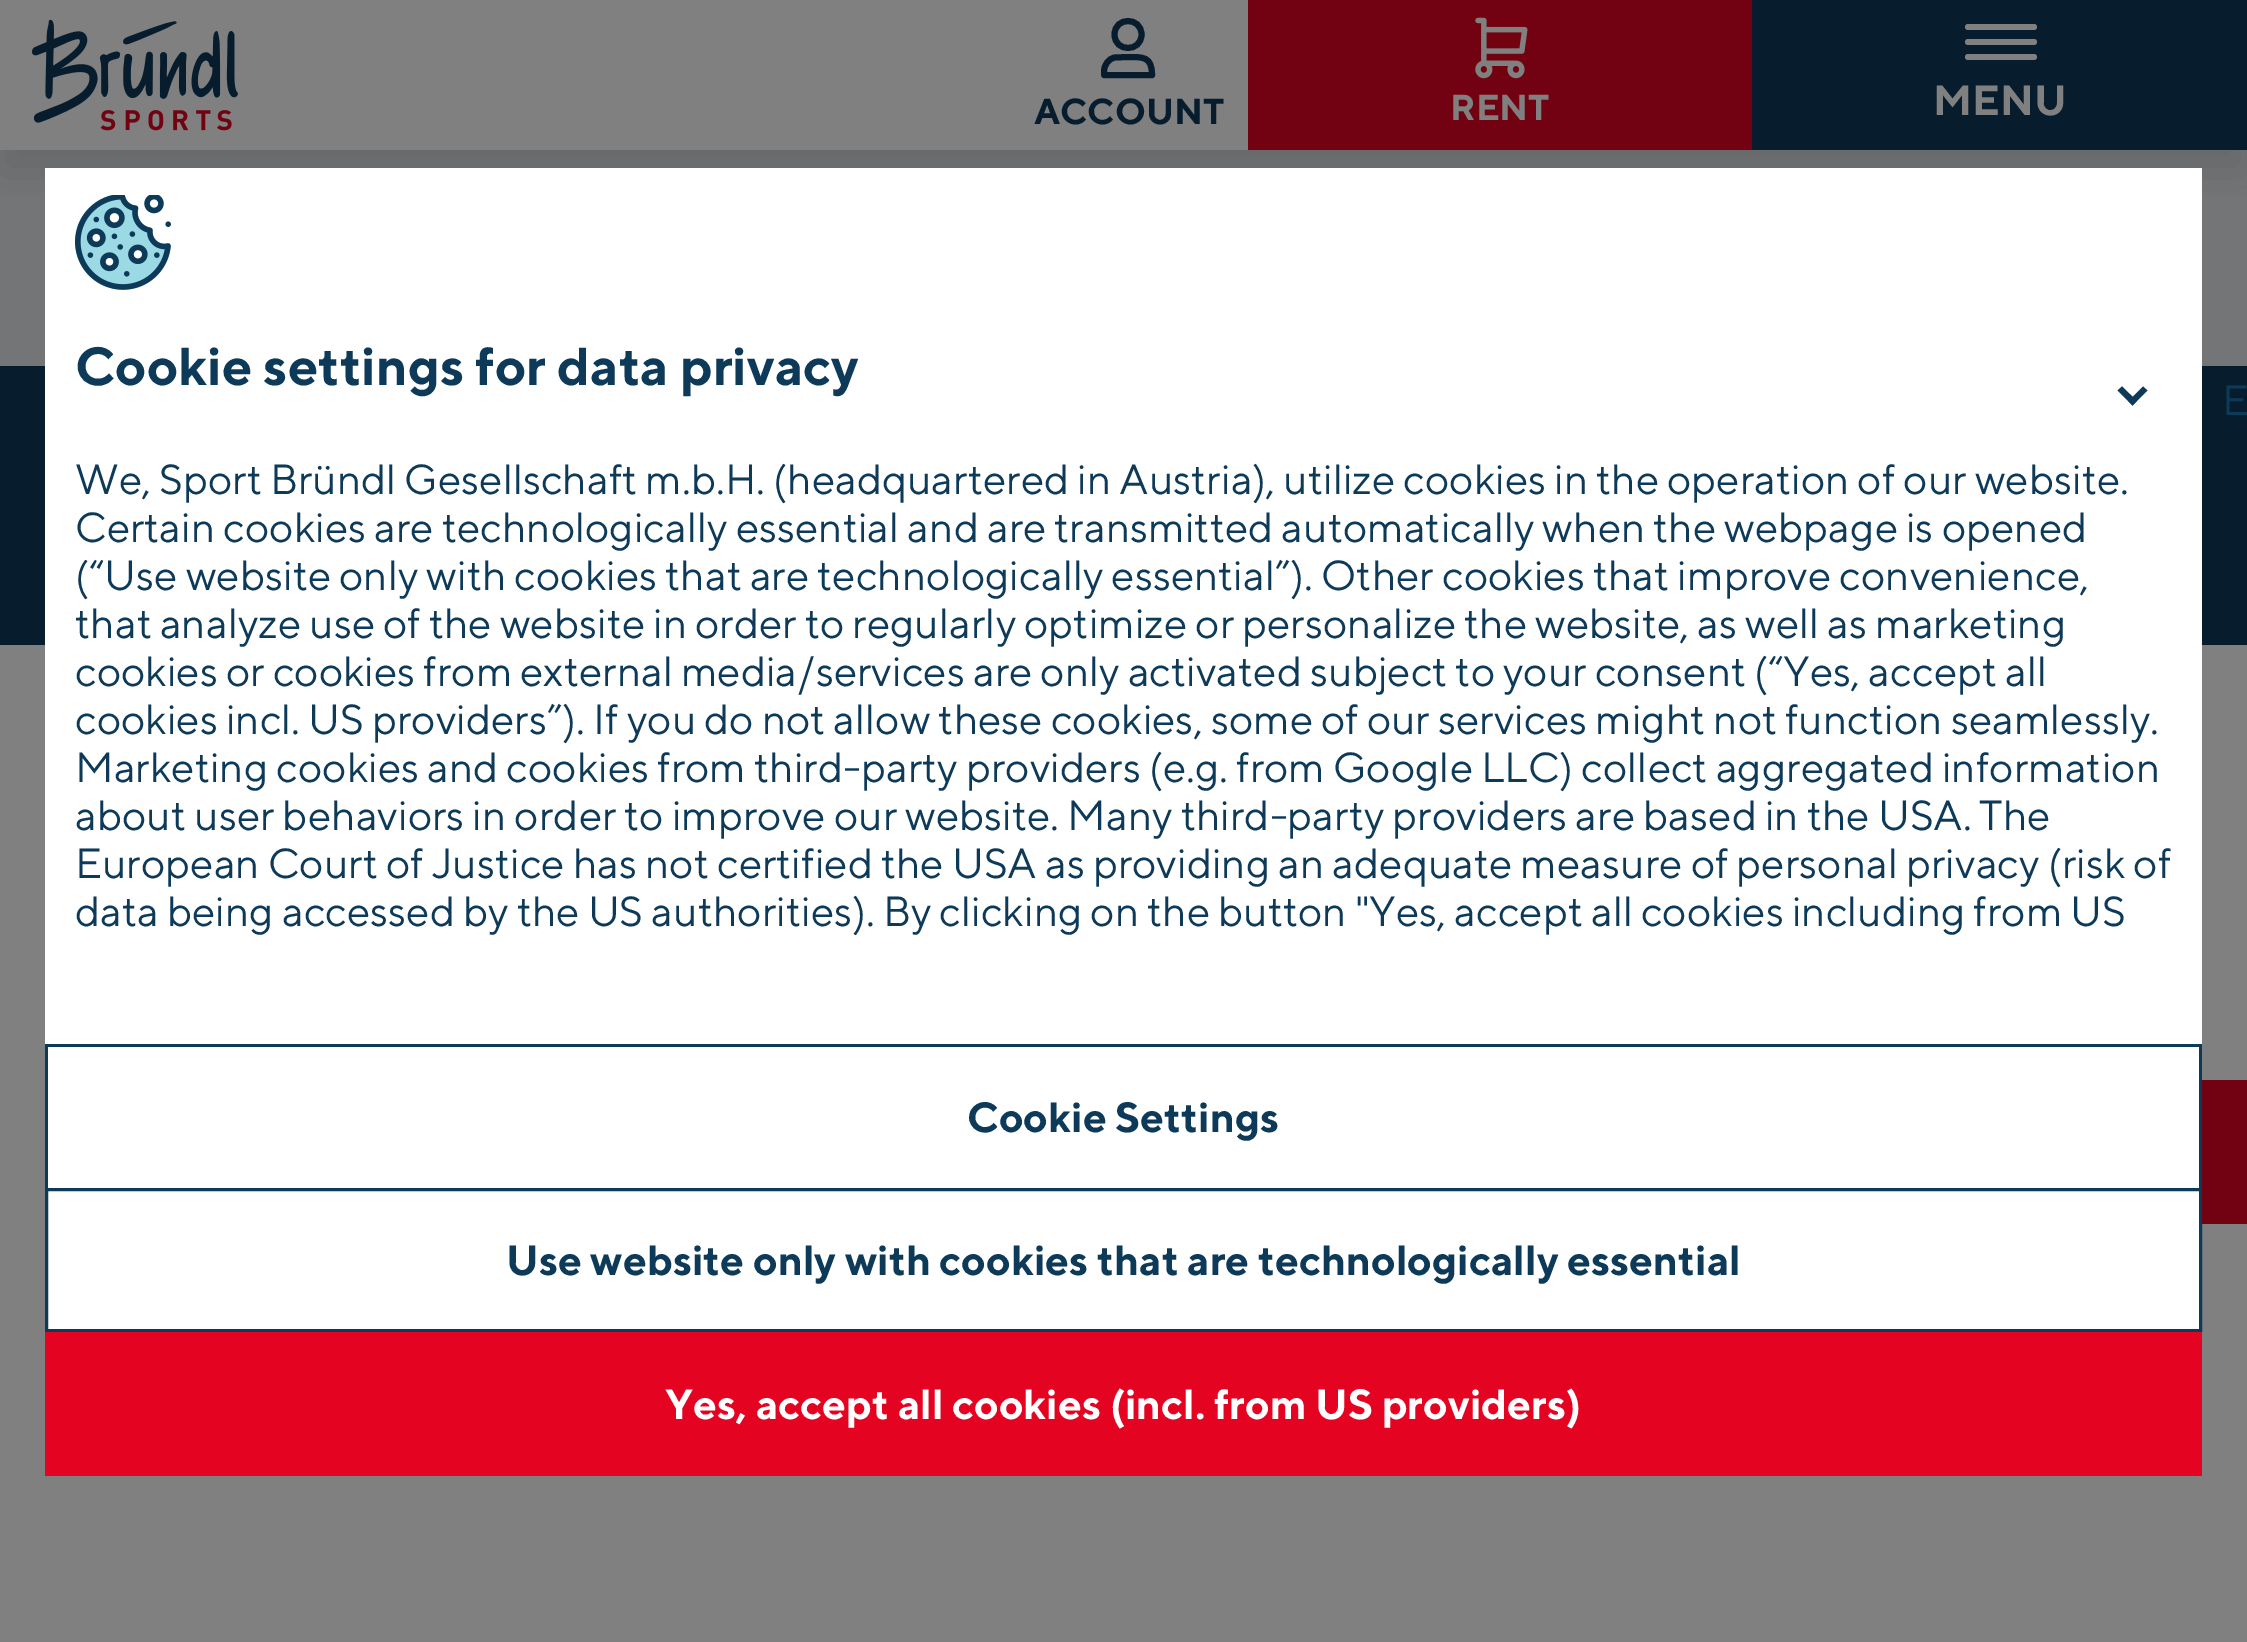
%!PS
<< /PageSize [2247 1642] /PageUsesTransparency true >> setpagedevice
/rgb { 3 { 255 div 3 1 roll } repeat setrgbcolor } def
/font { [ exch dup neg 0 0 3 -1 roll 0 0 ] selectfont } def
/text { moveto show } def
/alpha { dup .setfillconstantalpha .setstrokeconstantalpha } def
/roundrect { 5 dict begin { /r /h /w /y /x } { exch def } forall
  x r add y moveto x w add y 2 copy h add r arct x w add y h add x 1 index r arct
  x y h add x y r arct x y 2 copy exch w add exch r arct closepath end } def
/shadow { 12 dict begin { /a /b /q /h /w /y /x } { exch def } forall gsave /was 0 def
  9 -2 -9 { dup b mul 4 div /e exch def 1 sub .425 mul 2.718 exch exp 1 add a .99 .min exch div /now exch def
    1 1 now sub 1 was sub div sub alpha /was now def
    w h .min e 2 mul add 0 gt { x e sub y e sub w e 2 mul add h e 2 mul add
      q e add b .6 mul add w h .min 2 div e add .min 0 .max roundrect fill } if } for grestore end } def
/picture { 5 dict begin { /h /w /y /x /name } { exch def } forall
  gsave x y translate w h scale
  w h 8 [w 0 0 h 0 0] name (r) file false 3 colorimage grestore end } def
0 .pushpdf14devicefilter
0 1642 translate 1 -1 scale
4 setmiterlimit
128 128 128 rgb
0 0 2247 1642 rectfill
116 117 119 rgb
0 150 2247 216 rectfill
gsave
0 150 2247 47 rectclip
0 0 0 rgb
0 24 2247 150 0 24 0.12 shadow
grestore
(img_01.rgb) 32 19 206 112 picture
7 29 45 rgb
6 setlinewidth
1 setlinecap
1 setlinejoin
1104 71.5 moveto 0 -6.5 4.5 -13 11 -14 rcurveto 13 -0.5 rlineto 15 0 24 -0.5 24 18 rcurveto -48 0 rlineto closepath 1141.5 34.5 moveto 0 18 -27 18 -27 0 rcurveto 0 -18 27 -18 27 0 rcurveto closepath stroke
114 2 17 rgb
1248 0 504 150 rectfill
(img_02.rgb) 1475 17 53 62 picture
7 29 45 rgb
1752 0 495 150 rectfill
128 128 128 rgb
1965 24 72 6 3 roundrect fill
1965 39 72 6 3 roundrect fill
1965 54 72 6 3 roundrect fill
7 29 45 rgb
0 366 2247 279 rectfill
255 255 255 rgb
45 168 2157 1161 rectfill
(img_03.rgb) 75 195 96 95 picture
14 58 90 rgb
2143 386.5 moveto 4.5 4 rlineto -15 15 rlineto -4 -4.5 rlineto closepath fill
2122 386.5 moveto 15 14.5 rlineto -4.5 4.5 rlineto -15 -15 rlineto closepath fill
45 1044 2157 3 rectfill
2199 1044 3 144 rectfill
45 1044 3 144 rectfill
3 setlinewidth
0 setlinecap
0 setlinejoin
46.5 1189.5 2154 141 rectstroke
228 3 33 rgb
45 1332 2157 144 rectfill
114 2 17 rgb
2202 1080 45 144 rectfill
/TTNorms-Bold 36 font
7 29 45 rgb
(ACCOUNT) 1034 124 text
128 128 128 rgb
(RENT) 1450 120 text
/TTNorms-Bold 42 font
(MENU) 1933 115 text
/TTNorms-Bold 53.4 font
14 58 90 rgb
(Cookie settings for data privacy) 75 385 text
/TTNorms-Regular 42 font
(E) 2222 415 text
(We, Sport Bründl Gesellschaft m.b.H. \(headquartered in Austria\), utilize cookies in the operation of our website.) 75 494 text
(Certain cookies are technologically essential and are transmitted automatically when the webpage is opened) 75 542 text
(\(“Use website only with cookies that are technologically essential”\). Other cookies that improve convenience,) 75 590 text
(that analyze use of the website in order to regularly optimize or personalize the website, as well as marketing) 75 638 text
(cookies or cookies from external media/services are only activated subject to your consent \(“Yes, accept all) 75 686 text
(cookies incl. US providers”\). If you do not allow these cookies, some of our services might not function seamlessly.) 75 734 text
(Marketing cookies and cookies from third-party providers \(e.g. from Google LLC\) collect aggregated information) 75 782 text
(about user behaviors in order to improve our website. Many third-party providers are based in the USA. The) 75 830 text
(European Court of Justice has not certified the USA as providing an adequate measure of personal privacy \(risk of) 75 878 text
(data being accessed by the US authorities\). By clicking on the button "Yes, accept all cookies including from US) 75 926 text
/TTNorms-Bold 42 font
(Cookie Settings) 967 1132 text
(Use website only with cookies that are technologically essential) 506 1275 text
255 255 255 rgb
(Yes, accept all cookies \(incl. from US providers\)) 665 1419 text
.poppdf14devicefilter showpage
